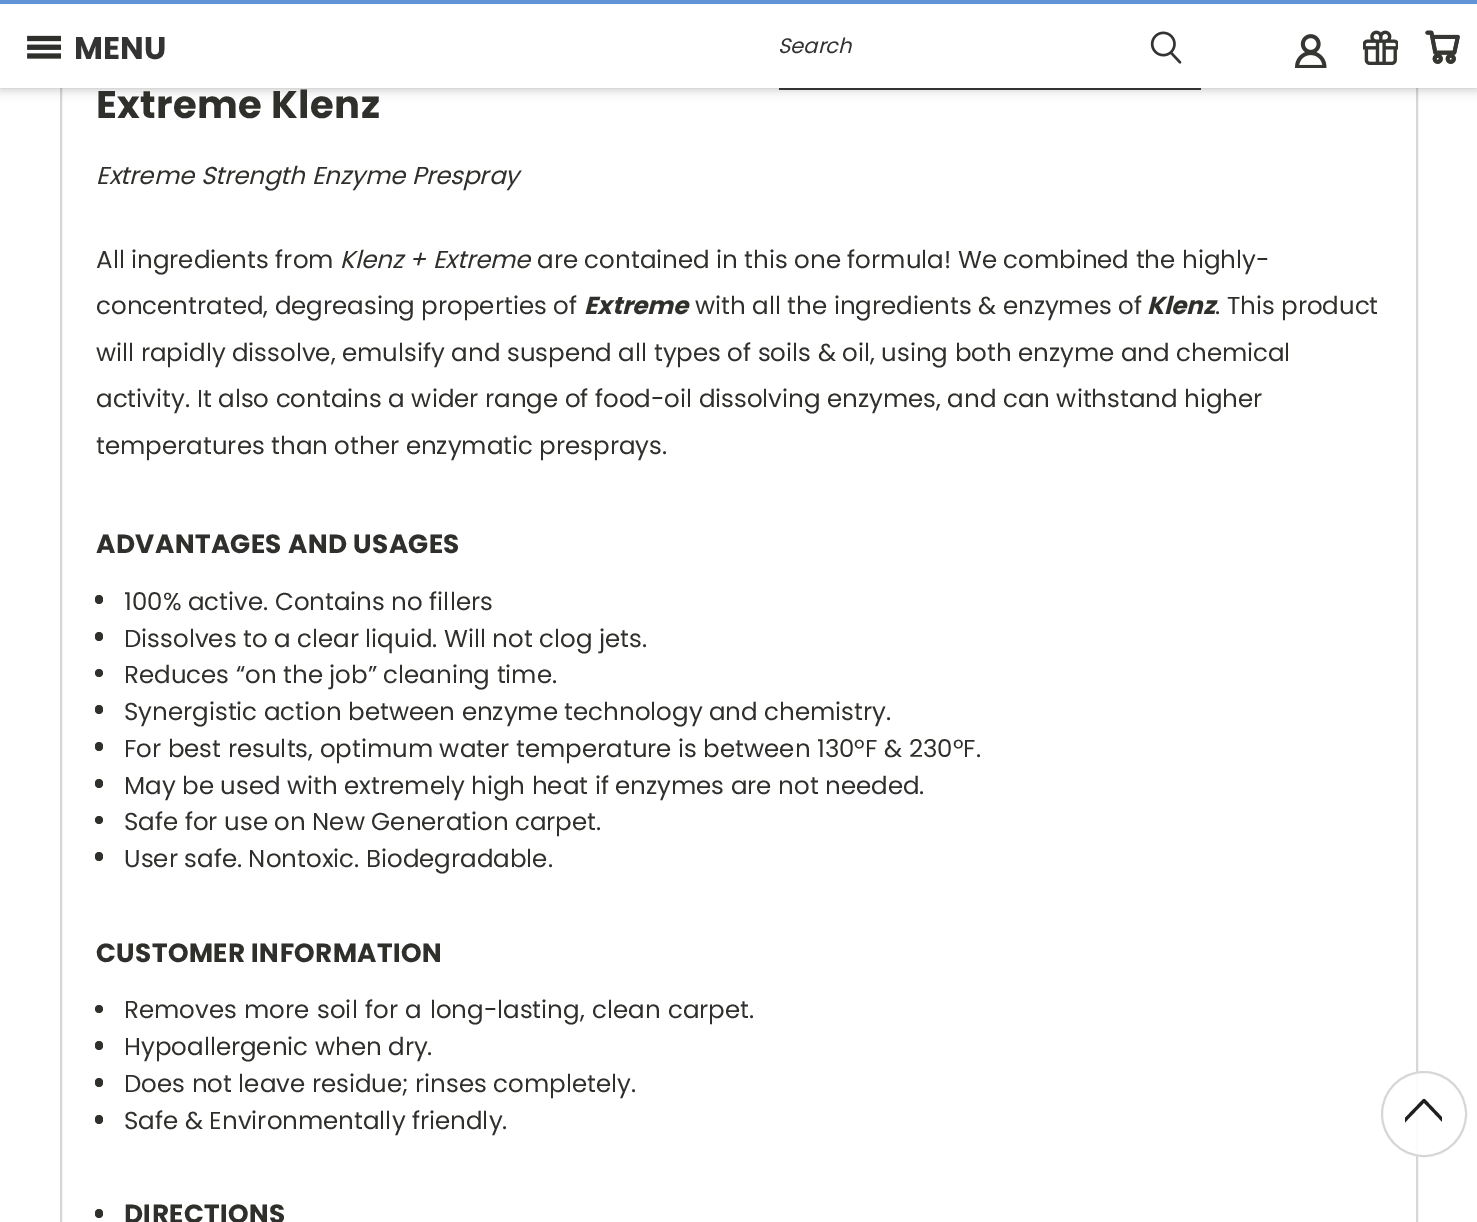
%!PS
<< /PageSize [1477 1222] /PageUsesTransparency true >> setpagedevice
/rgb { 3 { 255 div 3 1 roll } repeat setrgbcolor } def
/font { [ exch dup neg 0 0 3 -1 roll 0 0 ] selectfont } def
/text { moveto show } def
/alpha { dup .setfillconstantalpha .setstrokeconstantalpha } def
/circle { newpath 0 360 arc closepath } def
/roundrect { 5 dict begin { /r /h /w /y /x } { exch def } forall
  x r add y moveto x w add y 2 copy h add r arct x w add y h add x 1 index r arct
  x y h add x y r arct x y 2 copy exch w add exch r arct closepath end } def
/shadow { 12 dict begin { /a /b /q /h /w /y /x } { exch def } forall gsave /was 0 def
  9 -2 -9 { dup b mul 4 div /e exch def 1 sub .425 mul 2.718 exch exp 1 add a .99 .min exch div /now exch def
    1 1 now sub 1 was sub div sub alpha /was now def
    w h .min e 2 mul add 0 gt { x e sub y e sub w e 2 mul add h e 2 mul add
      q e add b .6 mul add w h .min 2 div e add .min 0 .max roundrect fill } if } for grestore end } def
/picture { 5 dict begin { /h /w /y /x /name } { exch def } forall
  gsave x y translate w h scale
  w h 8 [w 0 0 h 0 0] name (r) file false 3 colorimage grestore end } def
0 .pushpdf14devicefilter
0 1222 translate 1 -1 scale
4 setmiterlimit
255 255 255 rgb
0 0 1477 1222 rectfill
215 215 215 rgb
2 setlinewidth
61 -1 1356 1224 rectstroke
0 0 0 rgb
0 0 1477 88 0 6 0.3 shadow
255 255 255 rgb
0 4 1477 84 rectfill
98 147 214 rgb
0 0 1477 4 rectfill
(img_01.rgb) 27 35 34 24 picture
51 51 51 rgb
779 88 422 2 rectfill
(img_02.rgb) 1150 31 32 33 picture
(img_03.rgb) 1295 34 32 34 picture
(img_04.rgb) 1363 30 35 35 picture
(img_05.rgb) 1425 30 35 34 picture
47 47 43 rgb
95 595 8 9 4 roundrect fill
95 632 8 9 4 roundrect fill
99 673 4 circle fill
95 705 8 9 4 roundrect fill
95 742 8 9 4 roundrect fill
95 779 8 9 4 roundrect fill
99 820 4 circle fill
95 852 8 9 4 roundrect fill
99 1009 4 circle fill
95 1041 8 9 4 roundrect fill
95 1078 8 9 4 roundrect fill
95 1115 8 9 4 roundrect fill
95 1209 8 9 4 roundrect fill
0.9 alpha
255 255 255 rgb
1424 1114 42 circle fill
1 alpha
215 215 215 rgb
1424 1114 42 circle stroke
gsave
1442 1098 moveto 0 37 rlineto -37 0 rlineto 0 -37 rlineto closepath clip newpath
31 31 31 rgb
3.1 setlinewidth
1 setlinecap
1 setlinejoin
1454.5 1132.5 moveto -30.5 -32 rlineto -31 32 rlineto stroke
grestore
/Poppins-Bold 31.5 font
51 51 51 rgb
(MENU) 74 59 text
/Poppins-Italic 21 font
(Search) 778 53 text
/Poppins-Bold 38.5 font
47 47 43 rgb
96 118 moveto 0.4 0 (Extreme Klenz) ashow
/Poppins-Italic 24.5 font
(Extreme Strength Enzyme Prespray) 96 184 text
/Poppins-Regular 24.5 font
(All ingredients from) 96 268 text
/Poppins-Italic 24.5 font
(Klenz + Extreme) 340 268 text
/Poppins-Regular 24.5 font
(are contained in this one formula! We combined the highly-) 537 268 text
(concentrated, degreasing properties of) 96 314 text
/Poppins-BoldItalic 24.5 font
(Extreme) 584 314 text
/Poppins-Regular 24.5 font
(with all the ingredients & enzymes of) 695 314 text
/Poppins-BoldItalic 24.5 font
(Klenz) 1147 314 text
/Poppins-Regular 24.5 font
(. This product) 1215 314 text
(will rapidly dissolve, emulsify and suspend all types of soils & oil, using both enzyme and chemical) 96 361 text
(activity. It also contains a wider range of food-oil dissolving enzymes, and can withstand higher) 96 407 text
(temperatures than other enzymatic presprays.) 96 454 text
/Poppins-Bold 26.25 font
96 553 moveto 0.4 0 (ADVANTAGES AND USAGES) ashow
/Poppins-Regular 24.5 font
(100% active. Contains no fillers) 124 610 text
(Dissolves to a clear liquid. Will not clog jets.) 124 647 text
(Reduces “on the job” cleaning time.) 124 683 text
(Synergistic action between enzyme technology and chemistry.) 124 720 text
(For best results, optimum water temperature is between 130ºF & 230ºF.) 124 757 text
(May be used with extremely high heat if enzymes are not needed.) 124 794 text
(Safe for use on New Generation carpet.) 124 830 text
(User safe. Nontoxic. Biodegradable.) 124 867 text
/Poppins-Bold 26.25 font
96 962 moveto 0.4 0 (CUSTOMER INFORMATION) ashow
/Poppins-Regular 24.5 font
124 1018 moveto 1 0 32 (Removes more soil for a long-lasting, clean carpet.) widthshow
(Hypoallergenic when dry.) 124 1055 text
(Does not leave residue; rinses completely.) 124 1092 text
(Safe & Environmentally friendly.) 124 1129 text
/Poppins-Bold 26.25 font
124 1223 moveto 0.4 0 (DIRECTIONS) ashow
.poppdf14devicefilter showpage
